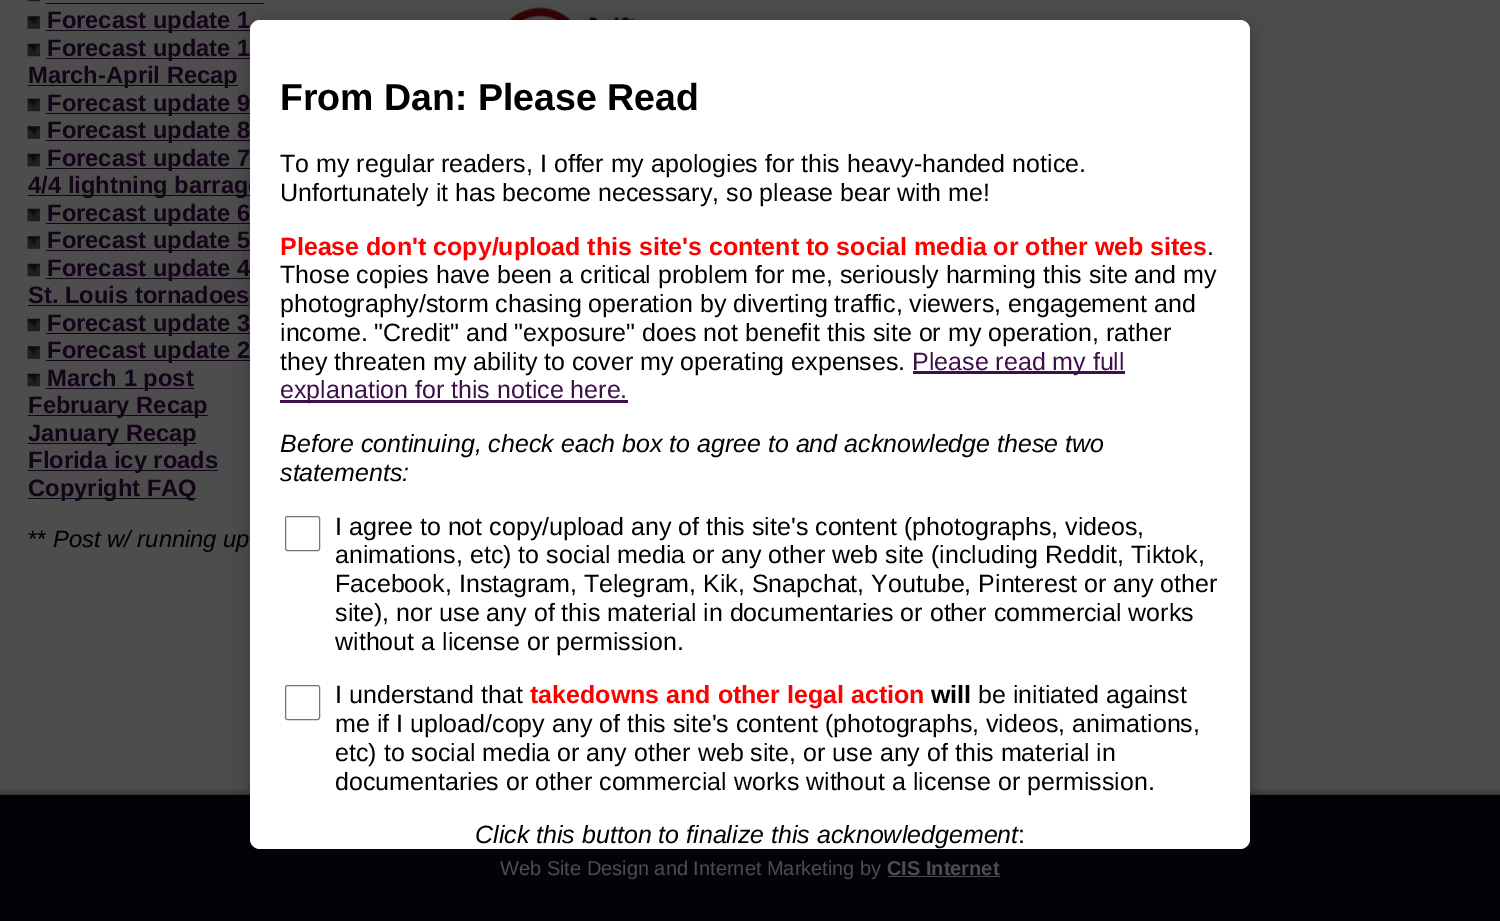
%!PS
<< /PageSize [1500 921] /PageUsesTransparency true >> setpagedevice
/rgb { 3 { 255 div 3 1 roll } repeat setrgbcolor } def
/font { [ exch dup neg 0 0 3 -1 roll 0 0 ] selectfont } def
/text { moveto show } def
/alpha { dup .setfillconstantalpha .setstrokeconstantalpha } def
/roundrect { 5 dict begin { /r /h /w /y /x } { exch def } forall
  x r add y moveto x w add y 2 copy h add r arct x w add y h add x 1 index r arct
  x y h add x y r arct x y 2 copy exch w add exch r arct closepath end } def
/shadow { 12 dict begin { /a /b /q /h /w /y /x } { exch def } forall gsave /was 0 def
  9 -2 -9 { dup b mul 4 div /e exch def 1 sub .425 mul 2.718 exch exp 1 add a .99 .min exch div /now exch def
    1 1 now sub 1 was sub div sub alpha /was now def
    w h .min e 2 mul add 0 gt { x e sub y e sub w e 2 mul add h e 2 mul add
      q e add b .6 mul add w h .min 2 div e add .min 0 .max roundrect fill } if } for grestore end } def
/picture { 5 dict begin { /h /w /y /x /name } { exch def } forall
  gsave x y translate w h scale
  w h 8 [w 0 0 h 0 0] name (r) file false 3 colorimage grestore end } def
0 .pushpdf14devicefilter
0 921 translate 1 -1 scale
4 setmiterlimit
2 2 8 rgb
0 0 1500 921 rectfill
77 77 77 rgb
0 0 1500 789 rectfill
(img_01.rgb) 27 0 13 2 picture
19 5 23 rgb
46 3 218 1 rectfill
(img_02.rgb) 27 16 13 13 picture
46 30 204 1 rectfill
(img_03.rgb) 27 43 13 14 picture
46 58 204 1 rectfill
28 85 210 1 rectfill
(img_03.rgb) 27 98 13 14 picture
46 113 204 1 rectfill
(img_02.rgb) 27 126 13 13 picture
46 140 204 1 rectfill
(img_03.rgb) 27 153 13 14 picture
46 168 204 1 rectfill
28 195 222 1 rectfill
(img_03.rgb) 27 208 13 14 picture
46 223 204 1 rectfill
(img_02.rgb) 27 236 13 13 picture
46 250 204 1 rectfill
(img_03.rgb) 27 263 13 14 picture
46 278 204 1 rectfill
28 305 221 1 rectfill
(img_03.rgb) 27 318 13 14 picture
46 333 204 1 rectfill
(img_04.rgb) 27 346 13 13 picture
46 360 204 1 rectfill
(img_03.rgb) 27 373 13 14 picture
46 388 148 1 rectfill
28 415 180 1 rectfill
28 443 168 1 rectfill
28 470 190 1 rectfill
28 498 168 1 rectfill
(img_05.rgb) 508 7 127 13 picture
(img_06.rgb) 0 789 1500 6 picture
77 77 77 rgb
888 876 112 1 rectfill
0 0 0 rgb
250 25 1000 829 10 10 0.3 shadow
/LiberationSans-Bold 23.75 font
19 5 23 rgb
(Forecast update 1) 47 28 text
(Forecast update 1) 47 56 text
(March-April Recap) 28 83 text
(Forecast update 9) 47 111 text
(Forecast update 8) 47 138 text
(Forecast update 7) 47 166 text
(4/4 lightning barrage) 28 193 text
(Forecast update 6) 47 221 text
(Forecast update 5) 47 248 text
(Forecast update 4) 47 276 text
(St. Louis tornadoes) 28 303 text
(Forecast update 3) 47 331 text
(Forecast update 2) 47 358 text
(March 1 post) 47 386 text
(February Recap) 28 413 text
(January Recap) 28 441 text
(Florida icy roads) 28 468 text
(Copyright FAQ) 28 496 text
/LiberationSans-Regular 23.75 font
0 0 0 rgb
(**) 28 547 text
/LiberationSans-Italic 23.75 font
(Post w/ running up) 53 547 text
/LiberationSans-Regular 20 font
77 77 77 rgb
(Web Site Design and Internet Marketing by) 500 875 text
/LiberationSans-Bold 20 font
(CIS Internet) 887 875 text
255 255 255 rgb
250 20 1000 829 10 roundrect fill
/LiberationSans-Bold 37.5 font
0 0 0 rgb
(From Dan: Please Read) 280 110 text
/LiberationSans-Regular 25 font
(To my regular readers, I offer my apologies for this heavy-handed notice.) 280 172 text
(Unfortunately it has become necessary, so please bear with me!) 280 201 text
/LiberationSans-Bold 25 font
255 0 0 rgb
(Please don't copy/upload this site's content to social media or other web sites) 280 255 text
/LiberationSans-Regular 25 font
0 0 0 rgb
(.) 1207 255 text
(Those copies have been a critical problem for me, seriously harming this site and my) 280 283 text
(photography/storm chasing operation by diverting traffic, viewers, engagement and) 280 312 text
(income. "Credit" and "exposure" does not benefit this site or my operation, rather) 280 341 text
(they threaten my ability to cover my operating expenses.) 280 370 text
63 15 76 rgb
913 371 212 3 rectfill
(Please read my full) 912 370 text
280 400 348 3 rectfill
(explanation for this notice here.) 280 398 text
/LiberationSans-Italic 25 font
0 0 0 rgb
(Before continuing, check each box to agree to and acknowledge these two) 280 452 text
(statements:) 280 481 text
118 118 118 rgb
285.5 516.5 34 34 2 roundrect stroke
/LiberationSans-Regular 25 font
0 0 0 rgb
(I agree to not copy/upload any of this site's content \(photographs, videos,) 335 535 text
(animations, etc\) to social media or any other web site \(including Reddit, Tiktok,) 335 563 text
(Facebook, Instagram, Telegram, Kik, Snapchat, Youtube, Pinterest or any other) 335 592 text
(site\), nor use any of this material in documentaries or other commercial works) 335 621 text
(without a license or permission.) 335 650 text
118 118 118 rgb
285.5 685.5 34 34 2 roundrect stroke
0 0 0 rgb
(I understand that) 335 703 text
/LiberationSans-Bold 25 font
255 0 0 rgb
(takedowns and other legal action) 530 703 text
0 0 0 rgb
(will) 931 703 text
/LiberationSans-Regular 25 font
(be initiated against) 978 703 text
(me if I upload/copy any of this site's content \(photographs, videos, animations,) 335 732 text
(etc\) to social media or any other web site, or use any of this material in) 335 761 text
(documentaries or other commercial works without a license or permission.) 335 790 text
/LiberationSans-Italic 25 font
(Click this button to finalize this acknowledgement) 475 843 text
/LiberationSans-Regular 25 font
(:) 1018 843 text
.poppdf14devicefilter showpage
